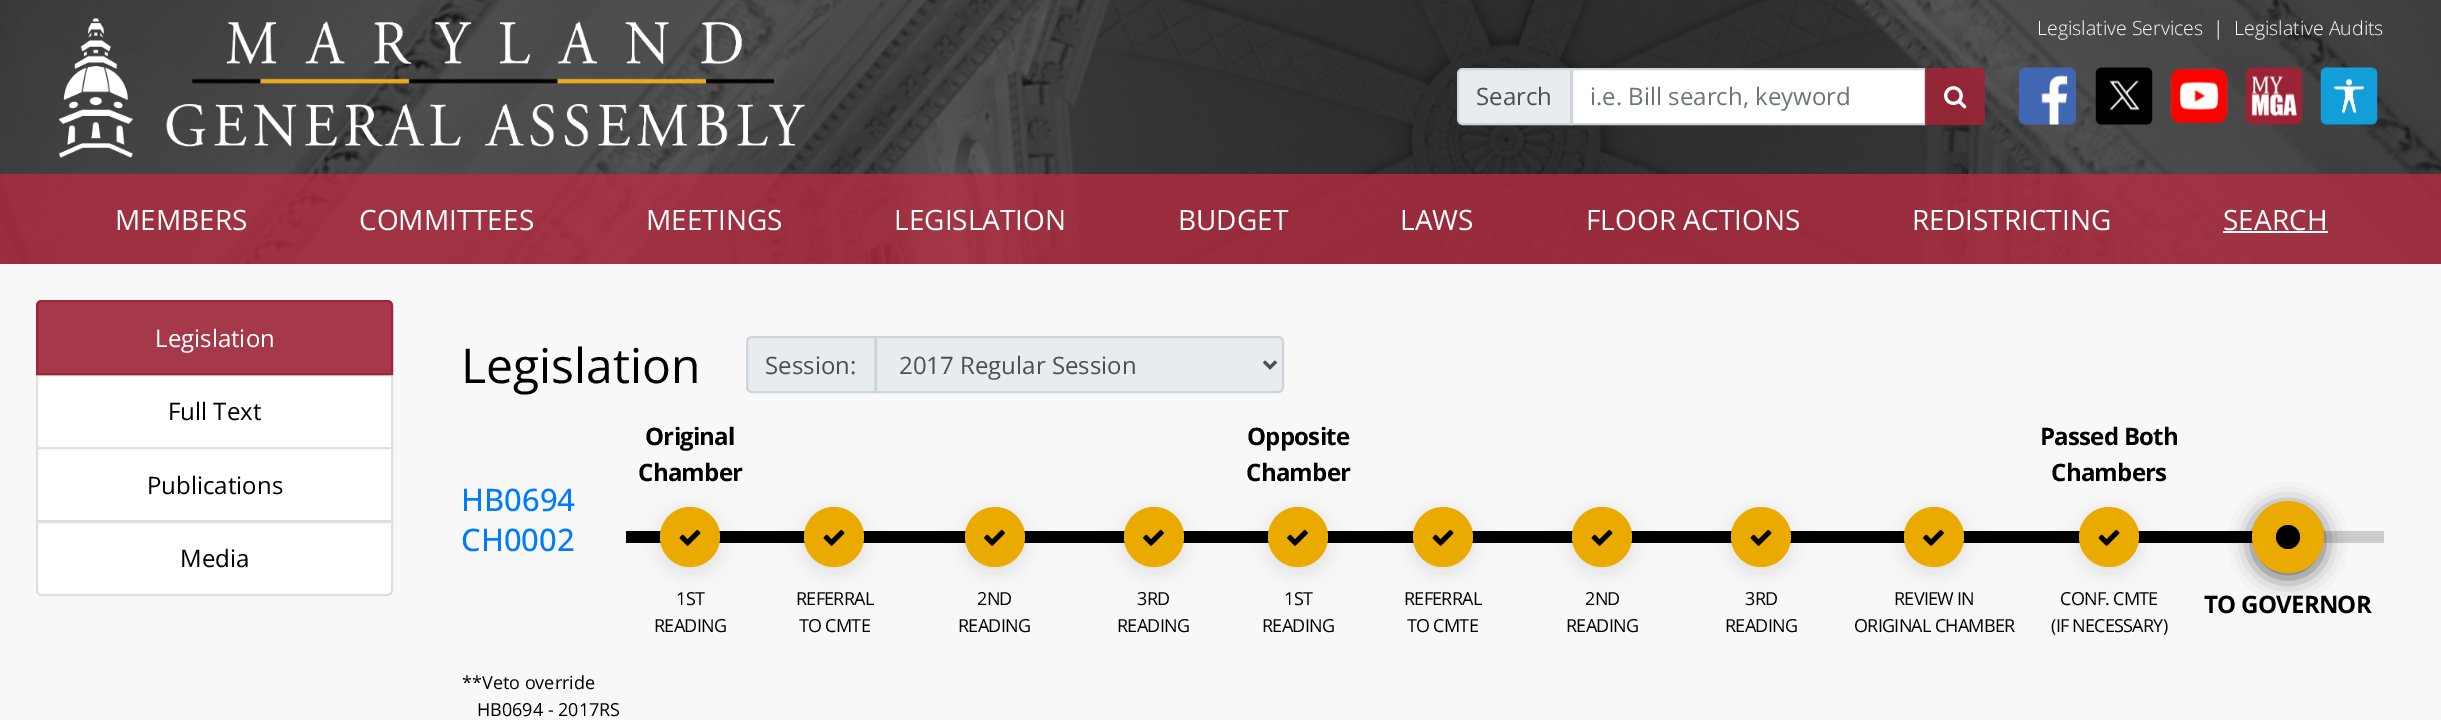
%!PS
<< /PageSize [2441 720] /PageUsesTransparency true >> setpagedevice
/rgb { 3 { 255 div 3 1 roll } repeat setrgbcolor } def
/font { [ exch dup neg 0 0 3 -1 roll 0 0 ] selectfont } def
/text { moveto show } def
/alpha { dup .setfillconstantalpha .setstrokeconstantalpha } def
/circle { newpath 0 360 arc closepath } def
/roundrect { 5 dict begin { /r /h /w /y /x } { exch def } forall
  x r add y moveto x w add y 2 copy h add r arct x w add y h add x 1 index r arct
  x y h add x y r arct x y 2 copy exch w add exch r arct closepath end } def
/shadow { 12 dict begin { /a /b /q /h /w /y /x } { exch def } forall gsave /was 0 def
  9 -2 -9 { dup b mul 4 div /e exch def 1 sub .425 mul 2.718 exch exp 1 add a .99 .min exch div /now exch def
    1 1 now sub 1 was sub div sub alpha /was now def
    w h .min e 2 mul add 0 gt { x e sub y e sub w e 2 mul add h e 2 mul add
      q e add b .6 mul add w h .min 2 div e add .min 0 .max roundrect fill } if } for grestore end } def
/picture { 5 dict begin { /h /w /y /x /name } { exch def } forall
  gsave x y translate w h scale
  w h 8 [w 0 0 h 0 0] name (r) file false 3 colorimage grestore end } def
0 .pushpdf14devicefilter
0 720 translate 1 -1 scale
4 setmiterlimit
248 248 248 rgb
0 0 2441 720 rectfill
(img_01.rgb) 0 0 2441 264 picture
0.6 alpha
0 0 0 rgb
0 0 2441 174 rectfill
1 alpha
(img_02.rgb) 59 18 747 140 picture
233 236 239 rgb
1463 69 moveto 108 0 rlineto 0 55 rlineto -108 0 rlineto -3 0 -5 -2 -5 -5 rcurveto 0 -45 rlineto 0 -3 2 -5 5 -5 rcurveto closepath gsave fill grestore
206 212 218 rgb
2 setlinewidth
stroke
255 255 255 rgb
1572 69 moveto 353 0 rlineto 0 55 rlineto -353 0 rlineto closepath gsave fill grestore
206 212 218 rgb
stroke
0.9 alpha
156 36 54 rgb
1925 68 moveto 54 0 rlineto 3.5 0 6 2.5 6 6 rcurveto 0 45 rlineto 0 3.5 -2.5 6 -6 6 rcurveto -54 0 rlineto closepath fill
1 alpha
(img_03.rgb) 1944 86 23 23 picture
(img_04.rgb) 2019 67 57 58 picture
(img_05.rgb) 2095 67 58 58 picture
(img_06.rgb) 2170 68 58 56 picture
(img_07.rgb) 2245 67 58 58 picture
(img_08.rgb) 2320 67 58 58 picture
0.9 alpha
0 174 2441 90 rectfill
1 alpha
255 255 255 rgb
2223 231 105 2 rectfill
37 375 moveto 355 0 rlineto 0 73 rlineto -355 0 rlineto closepath gsave fill grestore
223 223 223 rgb
stroke
0.9 alpha
156 36 54 rgb
42 300 moveto 345 0 rlineto 3.5 0 6 2.5 6 6 rcurveto 0 69 rlineto -357 0 rlineto 0 -69 rlineto 0 -3.5 2.5 -6 6 -6 rcurveto closepath fill
42 301 moveto 345 0 rlineto 3 0 5 2 5 5 rcurveto 0 68 rlineto -355 0 rlineto 0 -68 rlineto 0 -3 2 -5 5 -5 rcurveto closepath stroke
1 alpha
255 255 255 rgb
37 448 moveto 355 0 rlineto 0 73 rlineto -355 0 rlineto closepath gsave fill grestore
223 223 223 rgb
stroke
255 255 255 rgb
37 522 moveto 355 0 rlineto 0 68 rlineto 0 3 -2 5 -5 5 rcurveto -345 0 rlineto -3 0 -5 -2 -5 -5 rcurveto closepath gsave fill grestore
223 223 223 rgb
stroke
233 236 239 rgb
752 337 moveto 123 0 rlineto 0 55 rlineto -123 0 rlineto -3 0 -5 -2 -5 -5 rcurveto 0 -45 rlineto 0 -3 2 -5 5 -5 rcurveto closepath gsave fill grestore
206 212 218 rgb
stroke
233 236 239 rgb
876 337 moveto 402 0 rlineto 3 0 5 2 5 5 rcurveto 0 45 rlineto 0 3 -2 5 -5 5 rcurveto -402 0 rlineto closepath gsave fill grestore
206 212 218 rgb
stroke
73 80 87 rgb
3 setlinewidth
1264 361.5 moveto 6 6 rlineto 6 -6 rlineto stroke
0 0 0 rgb
626 531 1627 12 rectfill
660 512 60 60 30 11 0.1 shadow
234 170 0 rgb
690 537 30 circle fill
(img_09.rgb) 679 529 22 17 picture
0 0 0 rgb
804 512 60 60 30 11 0.1 shadow
234 170 0 rgb
834 537 30 circle fill
(img_09.rgb) 823 529 22 17 picture
0 0 0 rgb
965 512 60 60 30 11 0.1 shadow
234 170 0 rgb
995 537 30 circle fill
(img_10.rgb) 984 529 21 17 picture
0 0 0 rgb
1124 512 60 60 30 11 0.1 shadow
234 170 0 rgb
1154 537 30 circle fill
(img_10.rgb) 1143 529 21 17 picture
0 0 0 rgb
1268 512 60 60 30 11 0.1 shadow
234 170 0 rgb
1298 537 30 circle fill
(img_10.rgb) 1287 529 21 17 picture
0 0 0 rgb
1413 512 60 60 30 11 0.1 shadow
234 170 0 rgb
1443 537 30 circle fill
(img_09.rgb) 1432 529 22 17 picture
0 0 0 rgb
1572 512 60 60 30 11 0.1 shadow
234 170 0 rgb
1602 537 30 circle fill
(img_09.rgb) 1591 529 22 17 picture
0 0 0 rgb
1731 512 60 60 30 11 0.1 shadow
234 170 0 rgb
1761 537 30 circle fill
(img_09.rgb) 1750 529 22 17 picture
0 0 0 rgb
1904 512 60 60 30 11 0.1 shadow
234 170 0 rgb
1934 537 30 circle fill
(img_10.rgb) 1923 529 21 17 picture
0 0 0 rgb
2079 512 60 60 30 11 0.1 shadow
234 170 0 rgb
2109 537 30 circle fill
(img_09.rgb) 2098 529 22 17 picture
204 204 204 rgb
2323 531 61 12 rectfill
0 0 0 rgb
2252 506 72 72 36 11 0.6 shadow
234 170 0 rgb
2288 537 36 circle fill
0 0 0 rgb
2288 537 12 circle fill
/OpenSans-Light 19.5 font
255 255 255 rgb
(Legislative Services) 2037 35 text
(|) 2213 35 text
(Legislative Audits) 2234 35 text
/OpenSans-Regular 24 font
73 80 87 rgb
(Search) 1476 105 text
108 117 125 rgb
(i.e. Bill search, keyword) 1590 105 text
/OpenSans-Regular 28 font
255 255 255 rgb
(MEMBERS) 115 230 text
(COMMITTEES) 359 230 text
(MEETINGS) 646 230 text
(LEGISLATION) 894 230 text
(BUDGET) 1178 230 text
(LAWS) 1400 230 text
(FLOOR ACTIONS) 1586 230 text
(REDISTRICTING) 1912 230 text
(SEARCH) 2223 230 text
/OpenSans-Regular 24 font
(Legislation) 155 347 text
0 0 0 rgb
(Full Text) 168 420 text
(Publications) 147 494 text
(Media) 180 567 text
/OpenSans-Regular 48 font
(Legislation) 461 383 text
/OpenSans-Regular 24 font
73 80 87 rgb
(Session:) 765 374 text
(2017 Regular Session) 899 374 text
/OpenSans-Medium 31 font
0 123 255 rgb
(HB0694) 461 511 text
(CH0002) 461 551 text
/OpenSans-Bold 24 font
0 0 0 rgb
645 445 moveto -0.75 0 (Original) ashow
638 481 moveto -0.75 0 (Chamber) ashow
/OpenSans-Regular 18 font
676 605 moveto -0.75 0 (1ST) ashow
654 632 moveto -0.75 0 (READING) ashow
796 605 moveto -0.75 0 (REFERRAL) ashow
799 632 moveto -0.75 0 (TO CMTE) ashow
977 605 moveto -0.75 0 (2ND) ashow
958 632 moveto -0.75 0 (READING) ashow
1137 605 moveto -0.75 0 (3RD) ashow
1117 632 moveto -0.75 0 (READING) ashow
/OpenSans-Bold 24 font
1247 445 moveto -0.75 0 (Opposite) ashow
1246 481 moveto -0.75 0 (Chamber) ashow
/OpenSans-Regular 18 font
1284 605 moveto -0.75 0 (1ST) ashow
1262 632 moveto -0.75 0 (READING) ashow
1404 605 moveto -0.75 0 (REFERRAL) ashow
1407 632 moveto -0.75 0 (TO CMTE) ashow
1585 605 moveto -0.75 0 (2ND) ashow
1566 632 moveto -0.75 0 (READING) ashow
1745 605 moveto -0.75 0 (3RD) ashow
1725 632 moveto -0.75 0 (READING) ashow
1894 605 moveto -0.75 0 (REVIEW IN) ashow
1854 632 moveto -0.75 0 (ORIGINAL CHAMBER) ashow
/OpenSans-Bold 24 font
2040 445 moveto -0.75 0 (Passed Both) ashow
2051 481 moveto -0.75 0 (Chambers) ashow
/OpenSans-Regular 18 font
2060 605 moveto -0.75 0 (CONF. CMTE) ashow
2051 632 moveto -0.75 0 (\(IF NECESSARY\)) ashow
/OpenSans-Bold 24 font
2204 613 moveto -0.75 0 (TO GOVERNOR) ashow
/OpenSans-Regular 18 font
(**Veto override) 462 689 text
(HB0694 - 2017RS) 477 716 text
.poppdf14devicefilter showpage
